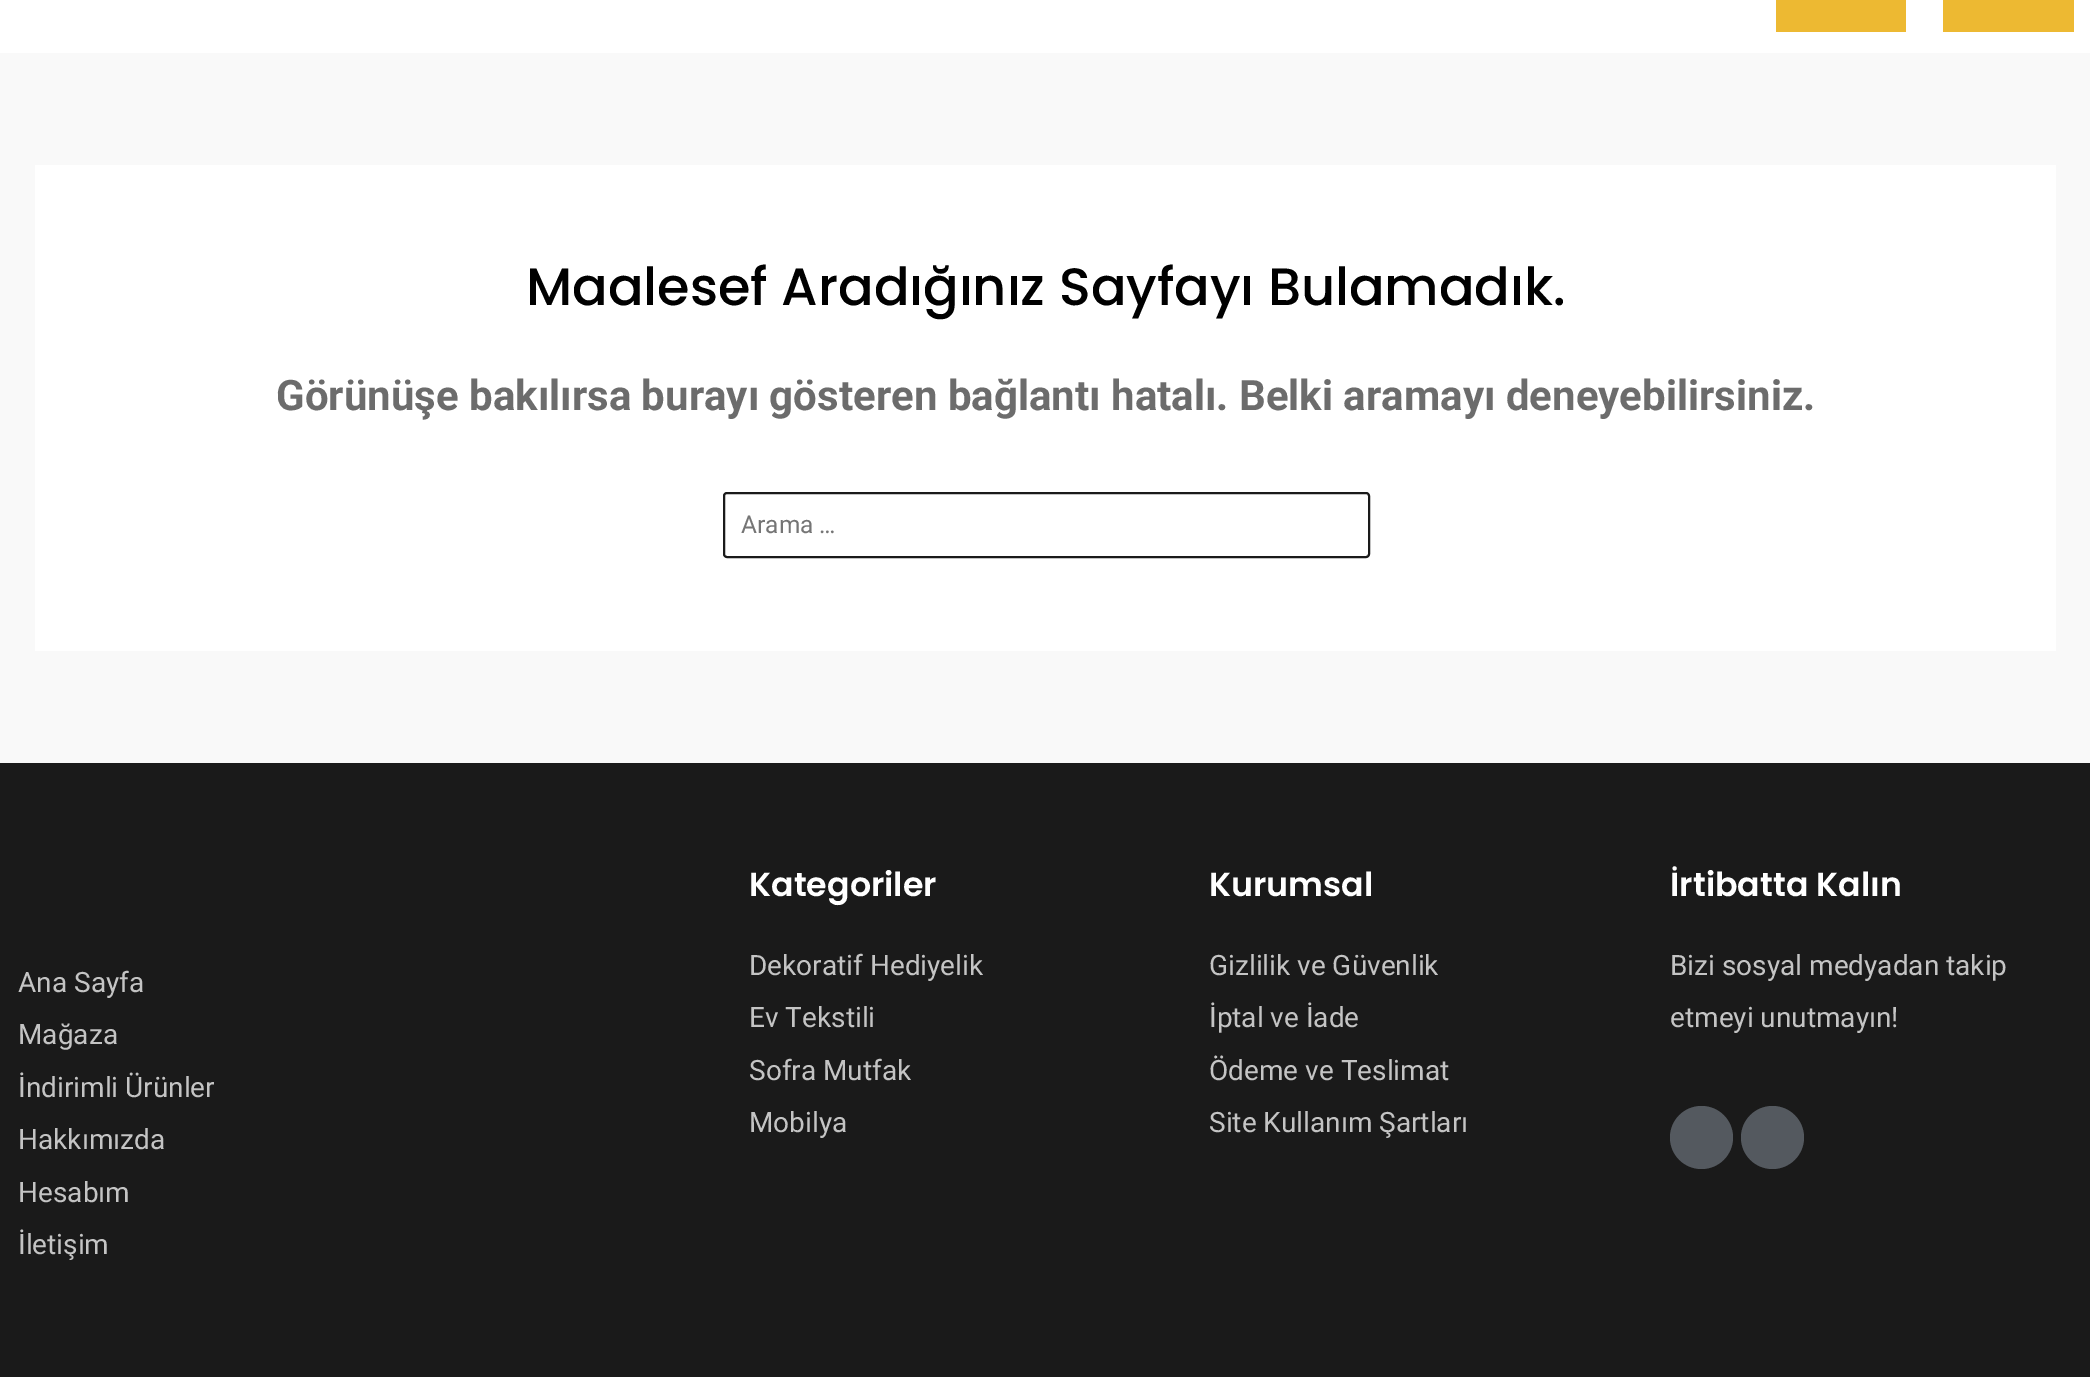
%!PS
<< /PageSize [2090 1377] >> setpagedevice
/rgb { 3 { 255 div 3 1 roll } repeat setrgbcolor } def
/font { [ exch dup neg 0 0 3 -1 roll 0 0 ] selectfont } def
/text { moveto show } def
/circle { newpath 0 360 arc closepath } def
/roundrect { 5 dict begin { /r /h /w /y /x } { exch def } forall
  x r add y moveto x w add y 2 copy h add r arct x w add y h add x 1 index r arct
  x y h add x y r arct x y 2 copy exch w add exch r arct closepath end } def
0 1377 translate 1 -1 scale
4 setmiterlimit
249 249 249 rgb
0 0 2090 1377 rectfill
255 255 255 rgb
0 0 2090 53 rectfill
237 185 50 rgb
1776 0 130 32 rectfill
1943 0 131 32 rectfill
255 255 255 rgb
35 165 2021 486 rectfill
26 26 26 rgb
2 setlinewidth
724 493 645 64 3 roundrect stroke
0 763 2090 614 rectfill
84 89 95 rgb
1701.5 1137.5 31.5 circle fill
1772.5 1137.5 31.5 circle fill
/Poppins-Medium 52.5 font
0 0 0 rgb
(Maalesef Aradığınız Sayfayı Bulamadık.) 526 305 text
/Roboto-Bold 42 font
108 108 108 rgb
(Görünüşe bakılırsa burayı gösteren bağlantı hatalı. Belki aramayı deneyebilirsiniz.) 276 410 text
/Roboto-Regular 24.5 font
117 117 117 rgb
(Arama …) 741 533 text
/Roboto-Regular 28 font
196 196 196 rgb
(Ana Sayfa) 18 992 text
(Mağaza) 18 1044 text
(İndirimli Ürünler) 18 1097 text
(Hakkımızda) 18 1149 text
(Hesabım) 18 1202 text
(İletişim) 18 1254 text
/Poppins-SemiBold 33.25 font
255 255 255 rgb
(Kategoriler) 749 896 text
/Roboto-Regular 28 font
196 196 196 rgb
(Dekoratif Hediyelik) 749 975 text
(Ev Tekstili) 749 1027 text
(Sofra Mutfak) 749 1080 text
(Mobilya) 749 1132 text
/Poppins-SemiBold 33.25 font
255 255 255 rgb
(Kurumsal) 1209 896 text
/Roboto-Regular 28 font
196 196 196 rgb
(Gizlilik ve Güvenlik) 1209 975 text
(İptal ve İade) 1209 1027 text
(Ödeme ve Teslimat) 1209 1080 text
(Site Kullanım Şartları) 1209 1132 text
/Poppins-SemiBold 33.25 font
255 255 255 rgb
(İrtibatta Kalın) 1670 896 text
/Roboto-Regular 28 font
196 196 196 rgb
(Bizi sosyal medyadan takip) 1670 975 text
(etmeyi unutmayın!) 1670 1027 text
showpage
